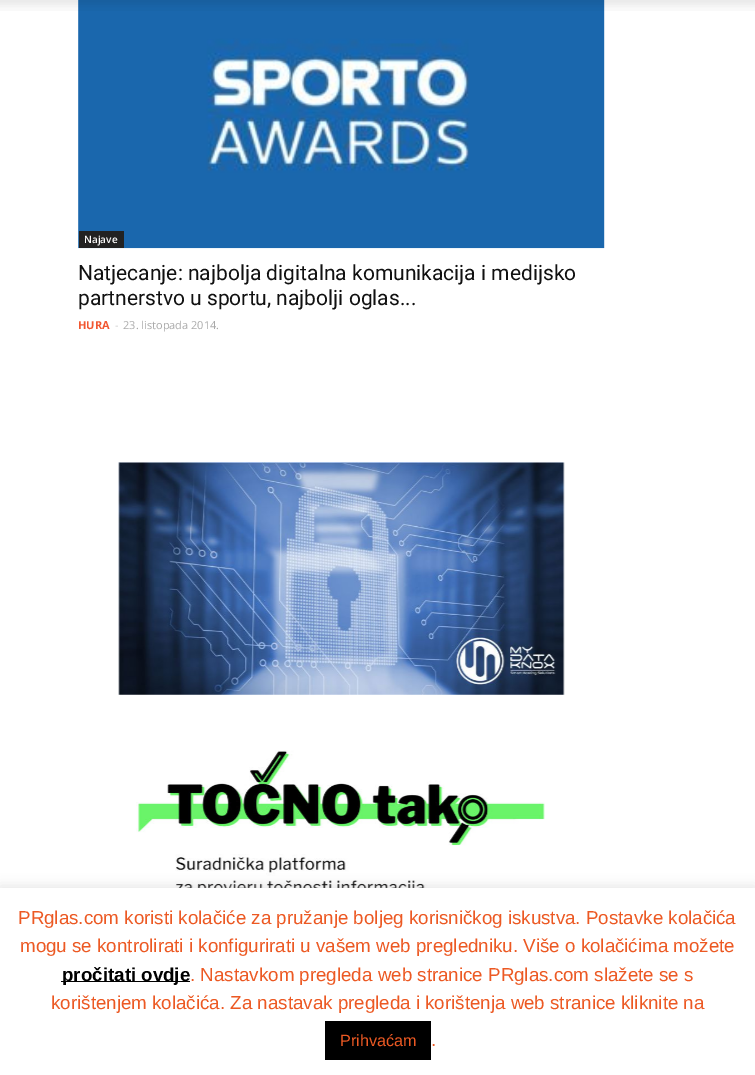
%!PS
<< /PageSize [755 1075] /PageUsesTransparency true >> setpagedevice
/rgb { 3 { 255 div 3 1 roll } repeat setrgbcolor } def
/font { [ exch dup neg 0 0 3 -1 roll 0 0 ] selectfont } def
/text { moveto show } def
/alpha { dup .setfillconstantalpha .setstrokeconstantalpha } def
/roundrect { 5 dict begin { /r /h /w /y /x } { exch def } forall
  x r add y moveto x w add y 2 copy h add r arct x w add y h add x 1 index r arct
  x y h add x y r arct x y 2 copy exch w add exch r arct closepath end } def
/shadow { 12 dict begin { /a /b /q /h /w /y /x } { exch def } forall gsave /was 0 def
  9 -2 -9 { dup b mul 4 div /e exch def 1 sub .425 mul 2.718 exch exp 1 add a .99 .min exch div /now exch def
    1 1 now sub 1 was sub div sub alpha /was now def
    w h .min e 2 mul add 0 gt { x e sub y e sub w e 2 mul add h e 2 mul add
      q e add b .6 mul add w h .min 2 div e add .min 0 .max roundrect fill } if } for grestore end } def
/picture { 5 dict begin { /h /w /y /x /name } { exch def } forall
  gsave x y translate w h scale
  w h 8 [w 0 0 h 0 0] name (r) file false 3 colorimage grestore end } def
0 .pushpdf14devicefilter
0 1075 translate 1 -1 scale
4 setmiterlimit
255 255 255 rgb
0 0 755 1075 rectfill
(img_02.rgb) 78 0 527 249 picture
(img_01.rgb) 0 0 755 11 picture
34 34 34 rgb
79 231 45 17 rectfill
(img_03.rgb) 118 462 447 233 picture
(img_04.rgb) 136 750 409 138 picture
172 171 171 rgb
0 886 755 188 0 6 0.3 shadow
255 255 255 rgb
0 888 755 187 rectfill
0 0 0 rgb
61 981 129 1 rectfill
325 1021 106 39 rectfill
/OpenSans-SemiBold 10 font
255 255 255 rgb
(Najave) 84 243 text
/Roboto-Regular 21 font
17 17 17 rgb
(Natjecanje: najbolja digitalna komunikacija i medijsko) 78 280 text
(partnerstvo u sportu, najbolji oglas...) 78 305 text
/OpenSans-Bold 11 font
241 87 49 rgb
(HURA) 78 329 text
/OpenSans-Regular 11 font
204 204 204 rgb
(-) 115 329 text
170 170 170 rgb
(23. listopada 2014.) 123 329 text
/LiberationSans-Regular 18.75 font
236 89 35 rgb
(PRglas.com koristi kolačiće za pružanje boljeg korisničkog iskustva. Postavke kolačića) 18 924 text
(mogu se kontrolirati i konfigurirati u vašem web pregledniku. Više o kolačićima možete) 20 952 text
/LiberationSans-Bold 18.75 font
0 0 0 rgb
(pročitati ovdje) 62 981 text
/LiberationSans-Regular 18.75 font
236 89 35 rgb
(. Nastavkom pregleda web stranice PRglas.com slažete se s) 190 981 text
(korištenjem kolačića. Za nastavak pregleda i korištenja web stranice kliknite na) 51 1009 text
/LiberationSans-Regular 16.25 font
(Prihvaćam) 340 1046 text
/LiberationSans-Regular 18.75 font
(.) 431 1046 text
.poppdf14devicefilter showpage
